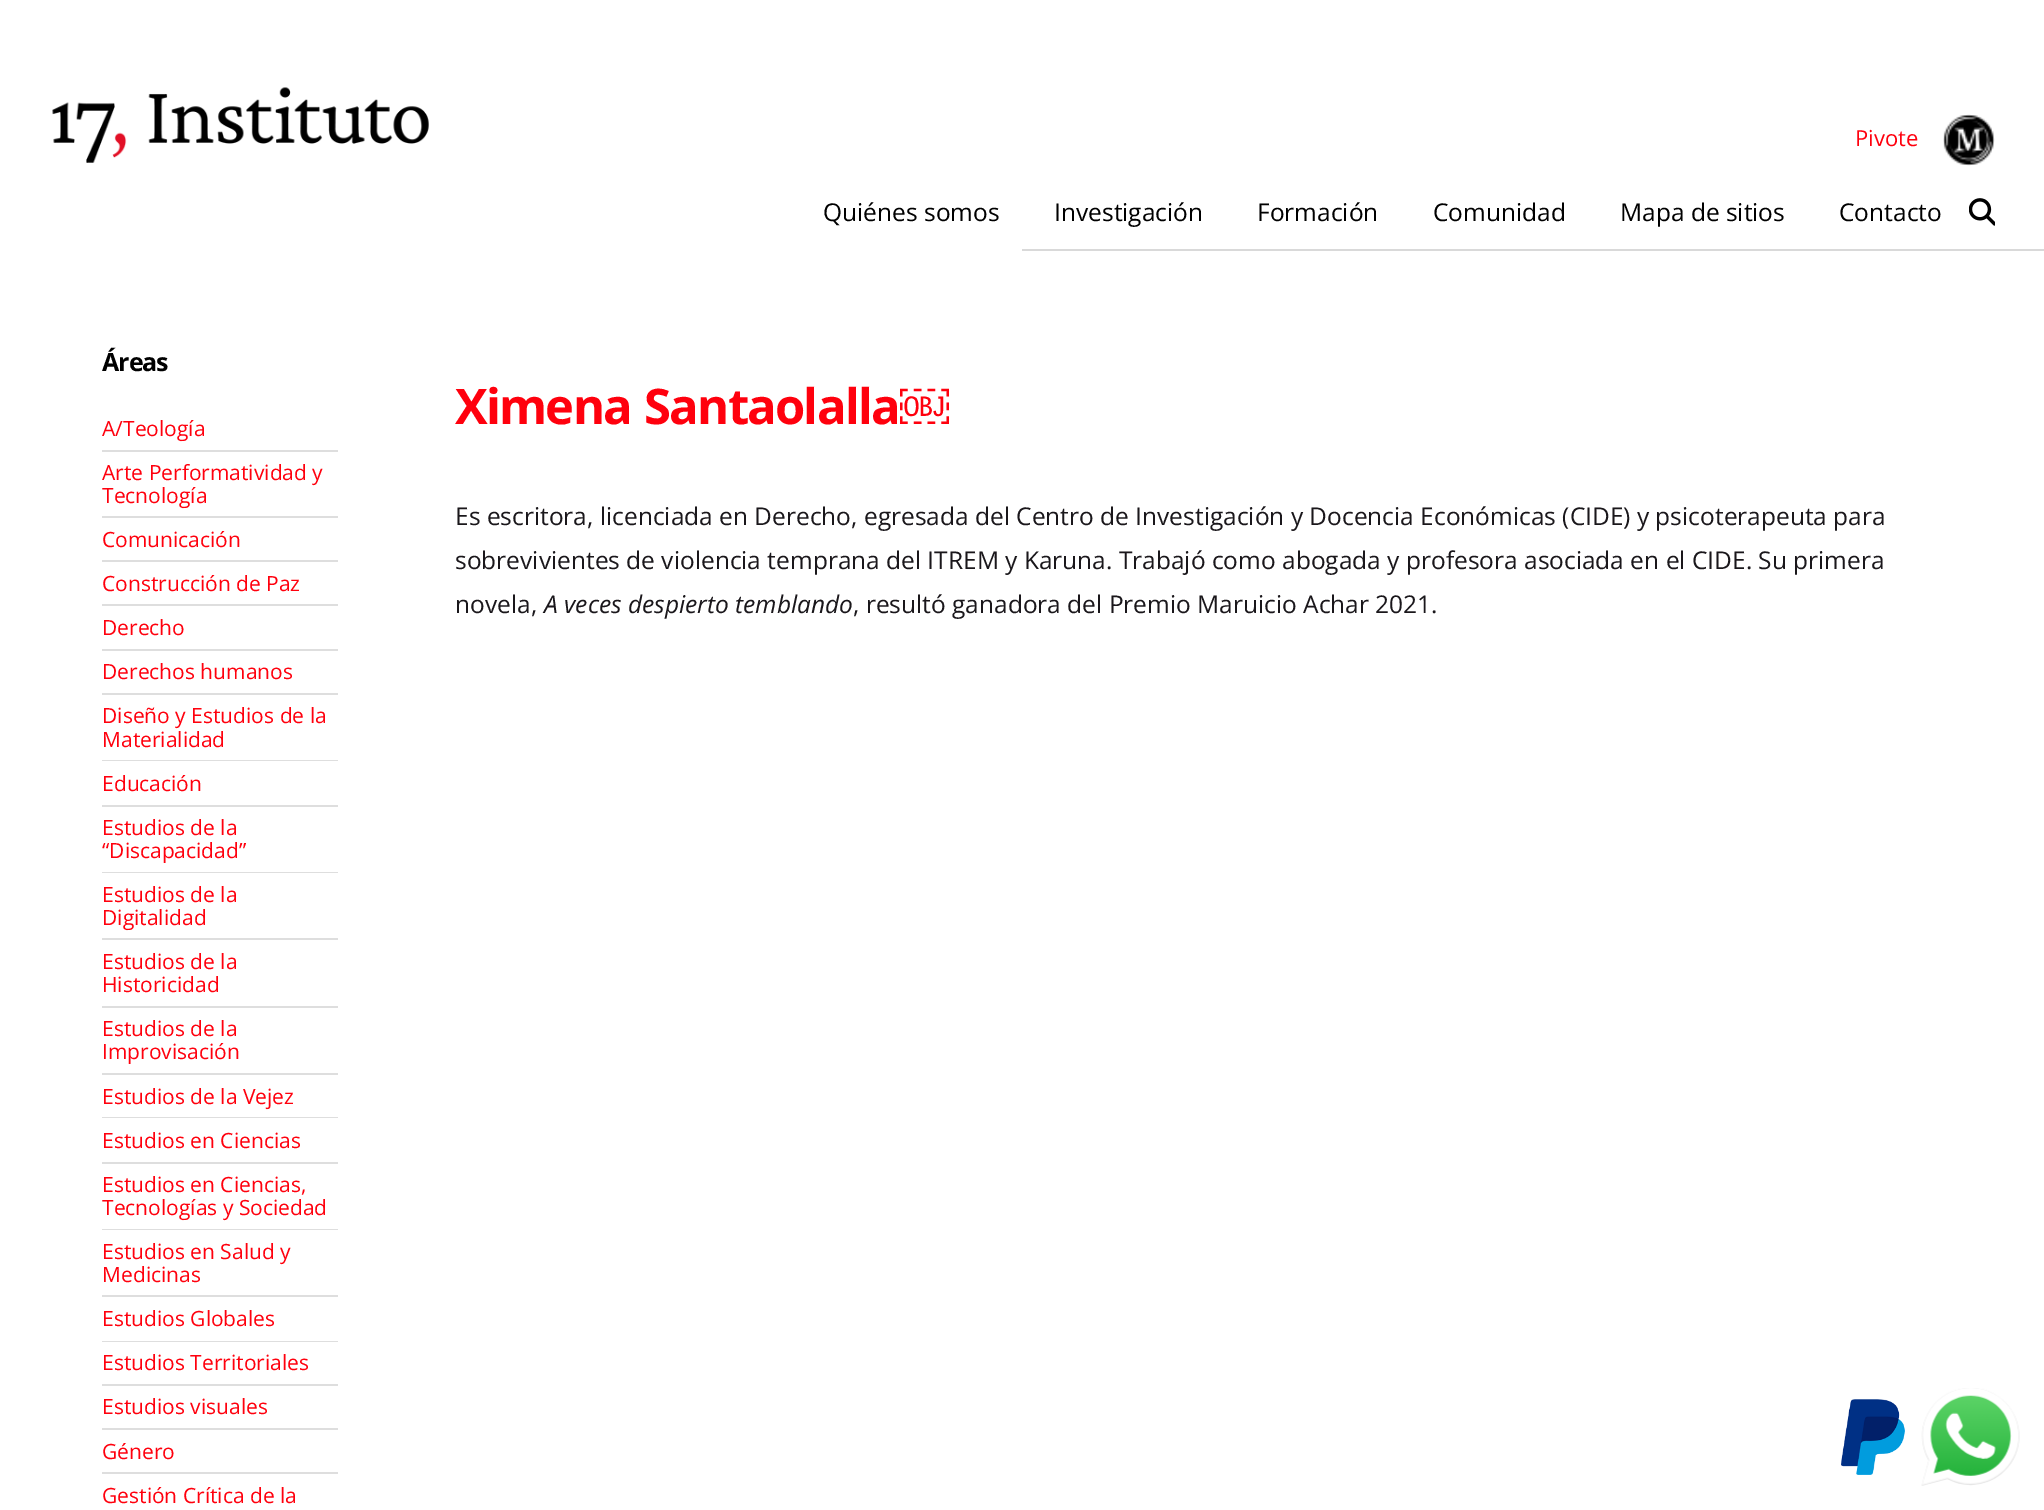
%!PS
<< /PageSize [2044 1510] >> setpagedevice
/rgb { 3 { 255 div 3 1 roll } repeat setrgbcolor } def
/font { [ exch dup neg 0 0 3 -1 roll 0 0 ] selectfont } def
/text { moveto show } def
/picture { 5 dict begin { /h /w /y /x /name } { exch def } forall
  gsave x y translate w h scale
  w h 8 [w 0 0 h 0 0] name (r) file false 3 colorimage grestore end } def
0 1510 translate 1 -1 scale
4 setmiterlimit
255 255 255 rgb
0 0 2044 1510 rectfill
(img_01.rgb) 52 87 377 76 picture
217 217 217 rgb
1022 249 1022 2 rectfill
(img_02.rgb) 1943 114 52 52 picture
(img_03.rgb) 1969 198 26 28 picture
222 222 222 rgb
102 450 236 2 rectfill
102 516 236 2 rectfill
102 560 236 2 rectfill
102 604 236 2 rectfill
102 649 236 2 rectfill
102 693 236 2 rectfill
102 760 236 1 rectfill
102 805 236 2 rectfill
102 872 236 1 rectfill
102 938 236 2 rectfill
102 1006 236 2 rectfill
102 1073 236 2 rectfill
102 1117 236 1 rectfill
102 1162 236 2 rectfill
102 1229 236 1 rectfill
102 1295 236 2 rectfill
102 1341 236 1 rectfill
102 1384 236 2 rectfill
102 1428 236 2 rectfill
102 1472 236 2 rectfill
(img_04.rgb) 1921 1388 99 98 picture
(img_05.rgb) 1841 1399 64 76 picture
/OpenSans-Regular 22 font
255 0 13 rgb
(Pivote) 1855 146 text
/OpenSans-Regular 24.5 font
0 0 0 rgb
(Quiénes somos) 823 221 text
(Investigación) 1054 221 text
(Formación) 1257 221 text
(Comunidad) 1433 221 text
(Mapa de sitios) 1620 221 text
(Contacto) 1839 221 text
/OpenSans-Bold 25 font
102 371 moveto -1 0 (Áreas) ashow
/OpenSans-Regular 21 font
255 0 13 rgb
(A/Teología) 102 436 text
(Arte Performatividad y) 102 480 text
(Tecnología) 102 503 text
(Comunicación) 102 547 text
(Construcción de Paz) 102 591 text
(Derecho) 102 635 text
(Derechos humanos) 102 679 text
(Diseño y Estudios de la) 102 723 text
(Materialidad) 102 747 text
(Educación) 102 791 text
(Estudios de la) 102 835 text
(“Discapacidad”) 102 858 text
(Estudios de la) 102 902 text
(Digitalidad) 102 925 text
(Estudios de la) 102 969 text
(Historicidad) 102 992 text
(Estudios de la) 102 1036 text
(Improvisación) 102 1059 text
(Estudios de la Vejez) 102 1104 text
(Estudios en Ciencias) 102 1148 text
(Estudios en Ciencias,) 102 1192 text
(Tecnologías y Sociedad) 102 1215 text
(Estudios en Salud y) 102 1259 text
(Medicinas) 102 1282 text
(Estudios Globales) 102 1326 text
(Estudios Territoriales) 102 1370 text
(Estudios visuales) 102 1414 text
(Género) 102 1459 text
(Gestión Crítica de la) 102 1503 text
/OpenSans-Bold 49 font
455 424 moveto 2 0 32 -1.75 0 (Ximena Santaolalla) awidthshow
/LiberationSans-Bold 49 font
900 424 moveto -1.75 0 (￼) ashow
/OpenSans-Regular 24.5 font
26 23 27 rgb
(Es escritora, licenciada en Derecho, egresada del Centro de Investigación y Docencia Económicas \(CIDE\) y psicoterapeuta para) 455 525 text
(sobrevivientes de violencia temprana del ITREM y Karuna. Trabajó como abogada y profesora asociada en el CIDE. Su primera) 455 569 text
(novela,) 455 613 text
/OpenSans-Italic 24.5 font
(A veces despierto temblando) 544 613 text
/OpenSans-Regular 24.5 font
(, resultó ganadora del Premio Maruicio Achar 2021.) 853 613 text
showpage
